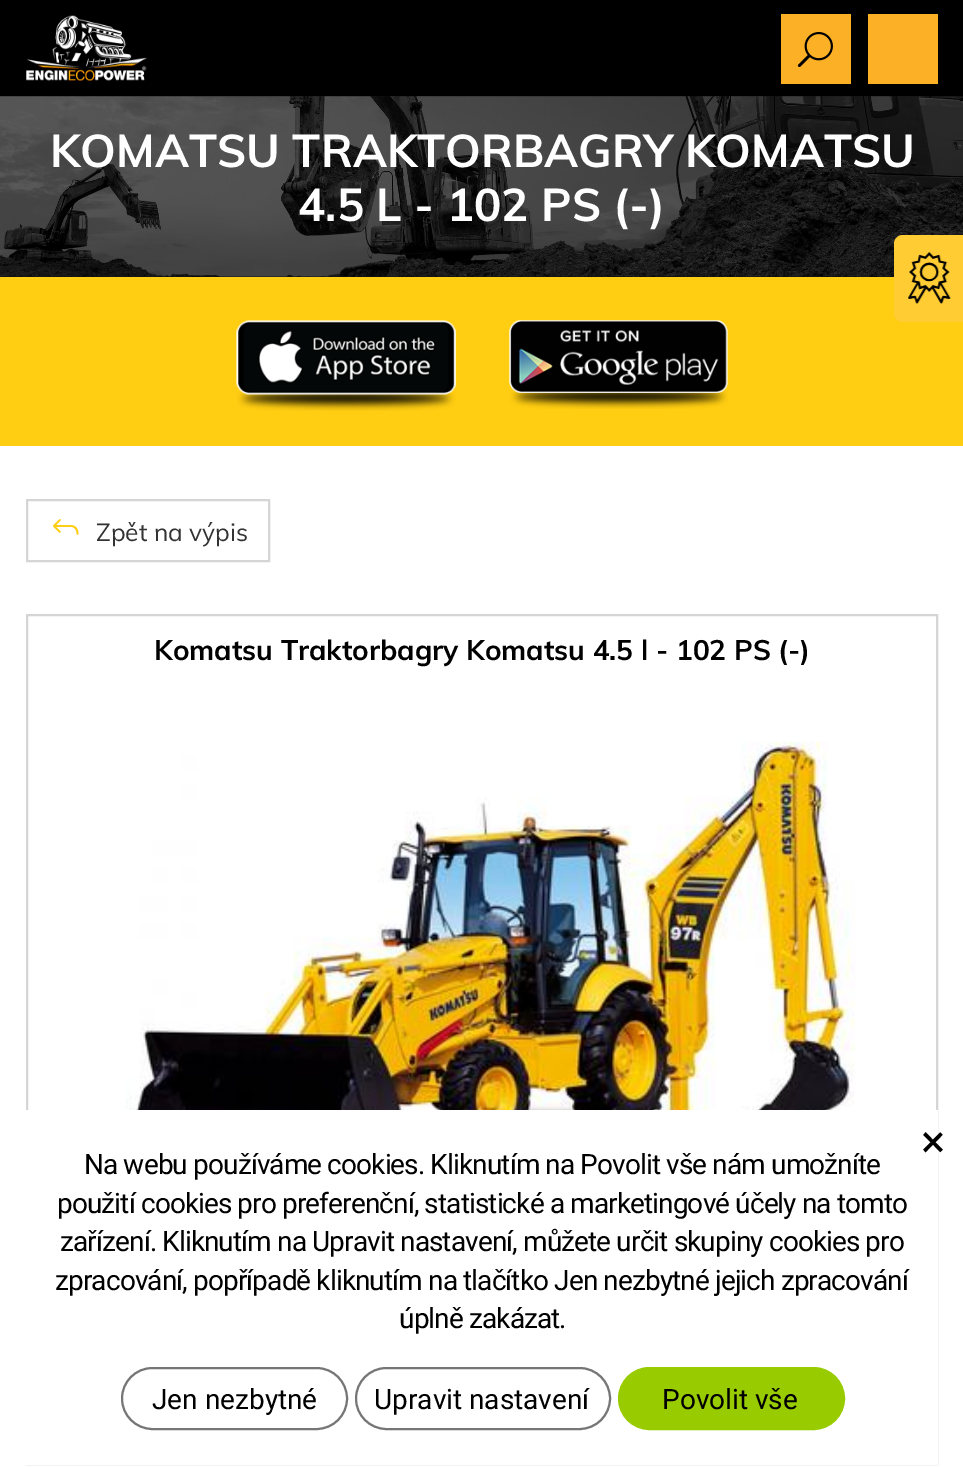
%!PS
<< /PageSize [963 1467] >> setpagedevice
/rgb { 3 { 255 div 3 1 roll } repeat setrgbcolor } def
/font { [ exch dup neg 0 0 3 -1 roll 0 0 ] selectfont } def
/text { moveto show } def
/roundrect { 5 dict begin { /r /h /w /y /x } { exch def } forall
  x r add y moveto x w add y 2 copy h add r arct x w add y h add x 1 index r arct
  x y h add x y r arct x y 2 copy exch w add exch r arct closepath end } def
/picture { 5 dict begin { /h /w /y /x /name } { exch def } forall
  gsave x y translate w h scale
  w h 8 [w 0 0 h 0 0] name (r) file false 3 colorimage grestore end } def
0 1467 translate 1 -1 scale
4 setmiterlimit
255 205 17 rgb
0 0 963 1467 rectfill
0 0 0 rgb
0 0 963 96 rectfill
(img_01.rgb) 26 15 121 66 picture
252 176 38 rgb
781 14 70 70 rectfill
(img_02.rgb) 797 31 36 36 picture
868 14 70 70 rectfill
18 18 18 rgb
0 96 963 181 rectfill
(img_03.rgb) 0 96 963 181 picture
(img_04.rgb) 236 320 220 91 picture
(img_05.rgb) 509 320 219 89 picture
255 255 255 rgb
0 446 963 1021 rectfill
213 213 213 rgb
2 setlinewidth
27 500 242 61 rectstroke
(img_06.rgb) 53 519 26 16 picture
27 615 910 849 rectstroke
(img_07.rgb) 112 741 744 369 picture
255 204 51 rgb
903 235 moveto 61 0 rlineto 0 87 rlineto -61 0 rlineto -5 0 -9 -4 -9 -9 rcurveto 0 -69 rlineto 0 -5 4 -9 9 -9 rcurveto closepath fill
(img_08.rgb) 908 252 43 52 picture
255 255 255 rgb
26 1110 912 355 rectfill
118 118 118 rgb
122 1368 225 61 30.5 roundrect stroke
356 1368 254 61 30.5 roundrect stroke
153 204 0 rgb
619 1368 225 61 30.5 roundrect gsave fill grestore
stroke
/Muli-Bold 45.5 font
255 255 255 rgb
(KOMATSU TRAKTORBAGRY KOMATSU) 50 167 text
(4.5 L - 102 PS \(-\)) 298 221 text
/Muli-Regular 24.5 font
51 51 51 rgb
(Zpět na výpis) 96 541 text
/Muli-Bold 28 font
0 0 0 rgb
(Komatsu Traktorbagry Komatsu 4.5 l - 102 PS \(-\)) 154 660 text
/Roboto-Regular 45.5 font
(×) 921 1157 text
/Roboto-Regular 28 font
84 1174 moveto -0.88 0 (Na webu používáme cookies. Kliknutím na Povolit vše nám umožníte) ashow
57 1213 moveto -0.88 0 (použití cookies pro preferenční, statistické a marketingové účely na tomto) ashow
60 1251 moveto -0.88 0 (zařízení. Kliknutím na Upravit nastavení, můžete určit skupiny cookies pro) ashow
55 1290 moveto -0.88 0 (zpracování, popřípadě kliknutím na tlačítko Jen nezbytné jejich zpracování) ashow
399 1328 moveto -0.88 0 (úplně zakázat.) ashow
(Jen nezbytné) 152 1409 text
(Upravit nastavení) 374 1409 text
(Povolit vše) 662 1409 text
showpage
